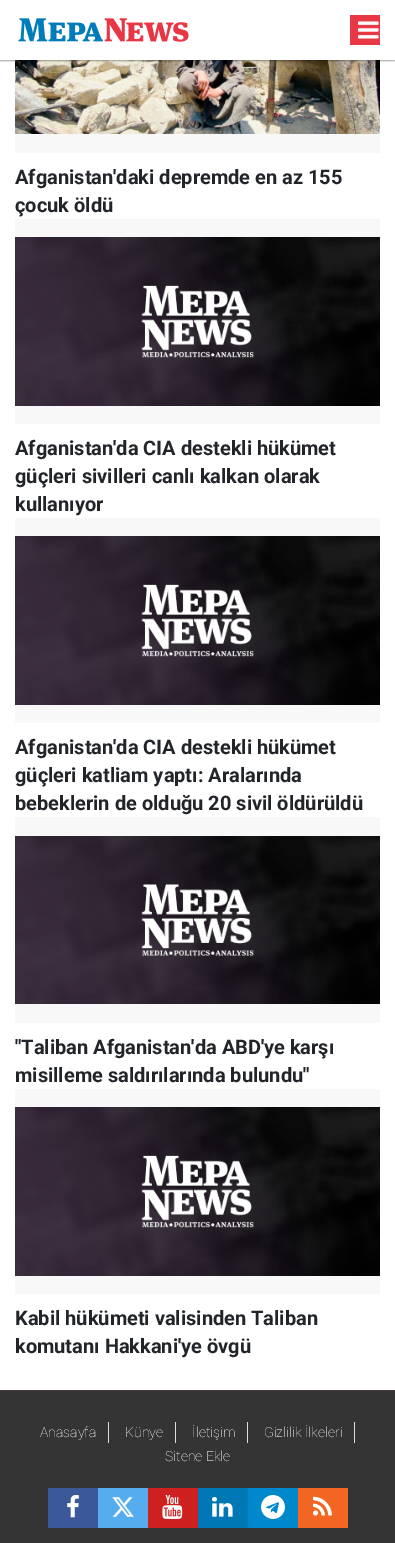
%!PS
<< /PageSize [395 1543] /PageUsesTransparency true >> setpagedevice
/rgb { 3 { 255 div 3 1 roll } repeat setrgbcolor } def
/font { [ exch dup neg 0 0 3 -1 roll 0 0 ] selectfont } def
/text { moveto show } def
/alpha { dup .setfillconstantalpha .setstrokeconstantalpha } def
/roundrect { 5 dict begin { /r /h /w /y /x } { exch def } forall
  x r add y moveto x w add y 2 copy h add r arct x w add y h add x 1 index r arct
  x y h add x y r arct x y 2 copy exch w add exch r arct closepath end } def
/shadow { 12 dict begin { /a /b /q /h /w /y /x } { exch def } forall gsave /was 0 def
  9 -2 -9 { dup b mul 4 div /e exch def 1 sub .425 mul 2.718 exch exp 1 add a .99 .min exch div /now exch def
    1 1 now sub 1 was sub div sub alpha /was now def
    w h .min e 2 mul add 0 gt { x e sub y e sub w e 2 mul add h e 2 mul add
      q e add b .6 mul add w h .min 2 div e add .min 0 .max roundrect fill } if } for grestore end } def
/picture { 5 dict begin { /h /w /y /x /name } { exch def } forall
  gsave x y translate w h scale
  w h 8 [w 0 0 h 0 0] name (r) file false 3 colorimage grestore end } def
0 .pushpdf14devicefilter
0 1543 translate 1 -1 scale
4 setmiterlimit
255 255 255 rgb
0 0 395 1543 rectfill
(img_03.rgb) 15 60 365 74 picture
0 0 0 rgb
0 1 395 60 0 0.5 0.24 shadow
0 1 395 60 0 1 0.12 shadow
255 255 255 rgb
0 0 395 60 rectfill
(img_01.rgb) 18 18 171 24 picture
232 55 69 rgb
350 15 30 30 rectfill
(img_02.rgb) 358 21 21 18 picture
248 248 248 rgb
15 134 365 19 rectfill
15 219 365 205 rectfill
(img_04.rgb) 15 237 365 169 picture
15 518 365 205 rectfill
(img_04.rgb) 15 536 365 169 picture
15 817 365 206 rectfill
(img_05.rgb) 15 836 365 168 picture
15 1089 365 205 rectfill
(img_04.rgb) 15 1107 365 169 picture
52 52 52 rgb
0 1391 395 152 rectfill
70 52 53 rgb
0 1390 395 1 rectfill
220 221 223 rgb
108 1422 1 21 rectfill
175 1422 1 21 rectfill
247 1422 1 21 rectfill
354 1422 1 21 rectfill
59 89 153 rgb
48 1488 50 40 rectfill
(img_06.rgb) 67 1495 12 23 picture
85 172 238 rgb
98 1488 50 40 rectfill
(img_07.rgb) 112 1497 22 20 picture
205 32 31 rgb
148 1488 50 40 rectfill
(img_08.rgb) 162 1495 21 24 picture
0 119 181 rgb
198 1488 50 40 rectfill
(img_09.rgb) 212 1497 21 20 picture
0 136 204 rgb
248 1488 50 40 rectfill
(img_10.rgb) 261 1495 24 24 picture
242 101 34 rgb
298 1488 50 40 rectfill
(img_11.rgb) 313 1496 19 20 picture
/Roboto-Bold 20 font
33 37 41 rgb
(Afganistan'daki depremde en az 155) 15 184 text
(çocuk öldü) 15 212 text
(Afganistan'da CIA destekli hükümet) 15 455 text
(güçleri sivilleri canlı kalkan olarak) 15 483 text
(kullanıyor) 15 511 text
(Afganistan'da CIA destekli hükümet) 15 754 text
(güçleri katliam yaptı: Aralarında) 15 782 text
(bebeklerin de olduğu 20 sivil öldürüldü) 15 810 text
("Taliban Afganistan'da ABD'ye karşı) 15 1054 text
(misilleme saldırılarında bulundu") 15 1082 text
(Kabil hükümeti valisinden Taliban) 15 1325 text
(komutanı Hakkani'ye övgü) 15 1353 text
/Roboto-Thin 14 font
255 255 255 rgb
(Anasayfa) 40 1437 text
(Künye) 125 1437 text
(İletişim) 192 1437 text
(Gizlilik İlkeleri) 264 1437 text
(Sitene Ekle) 165 1461 text
.poppdf14devicefilter showpage
